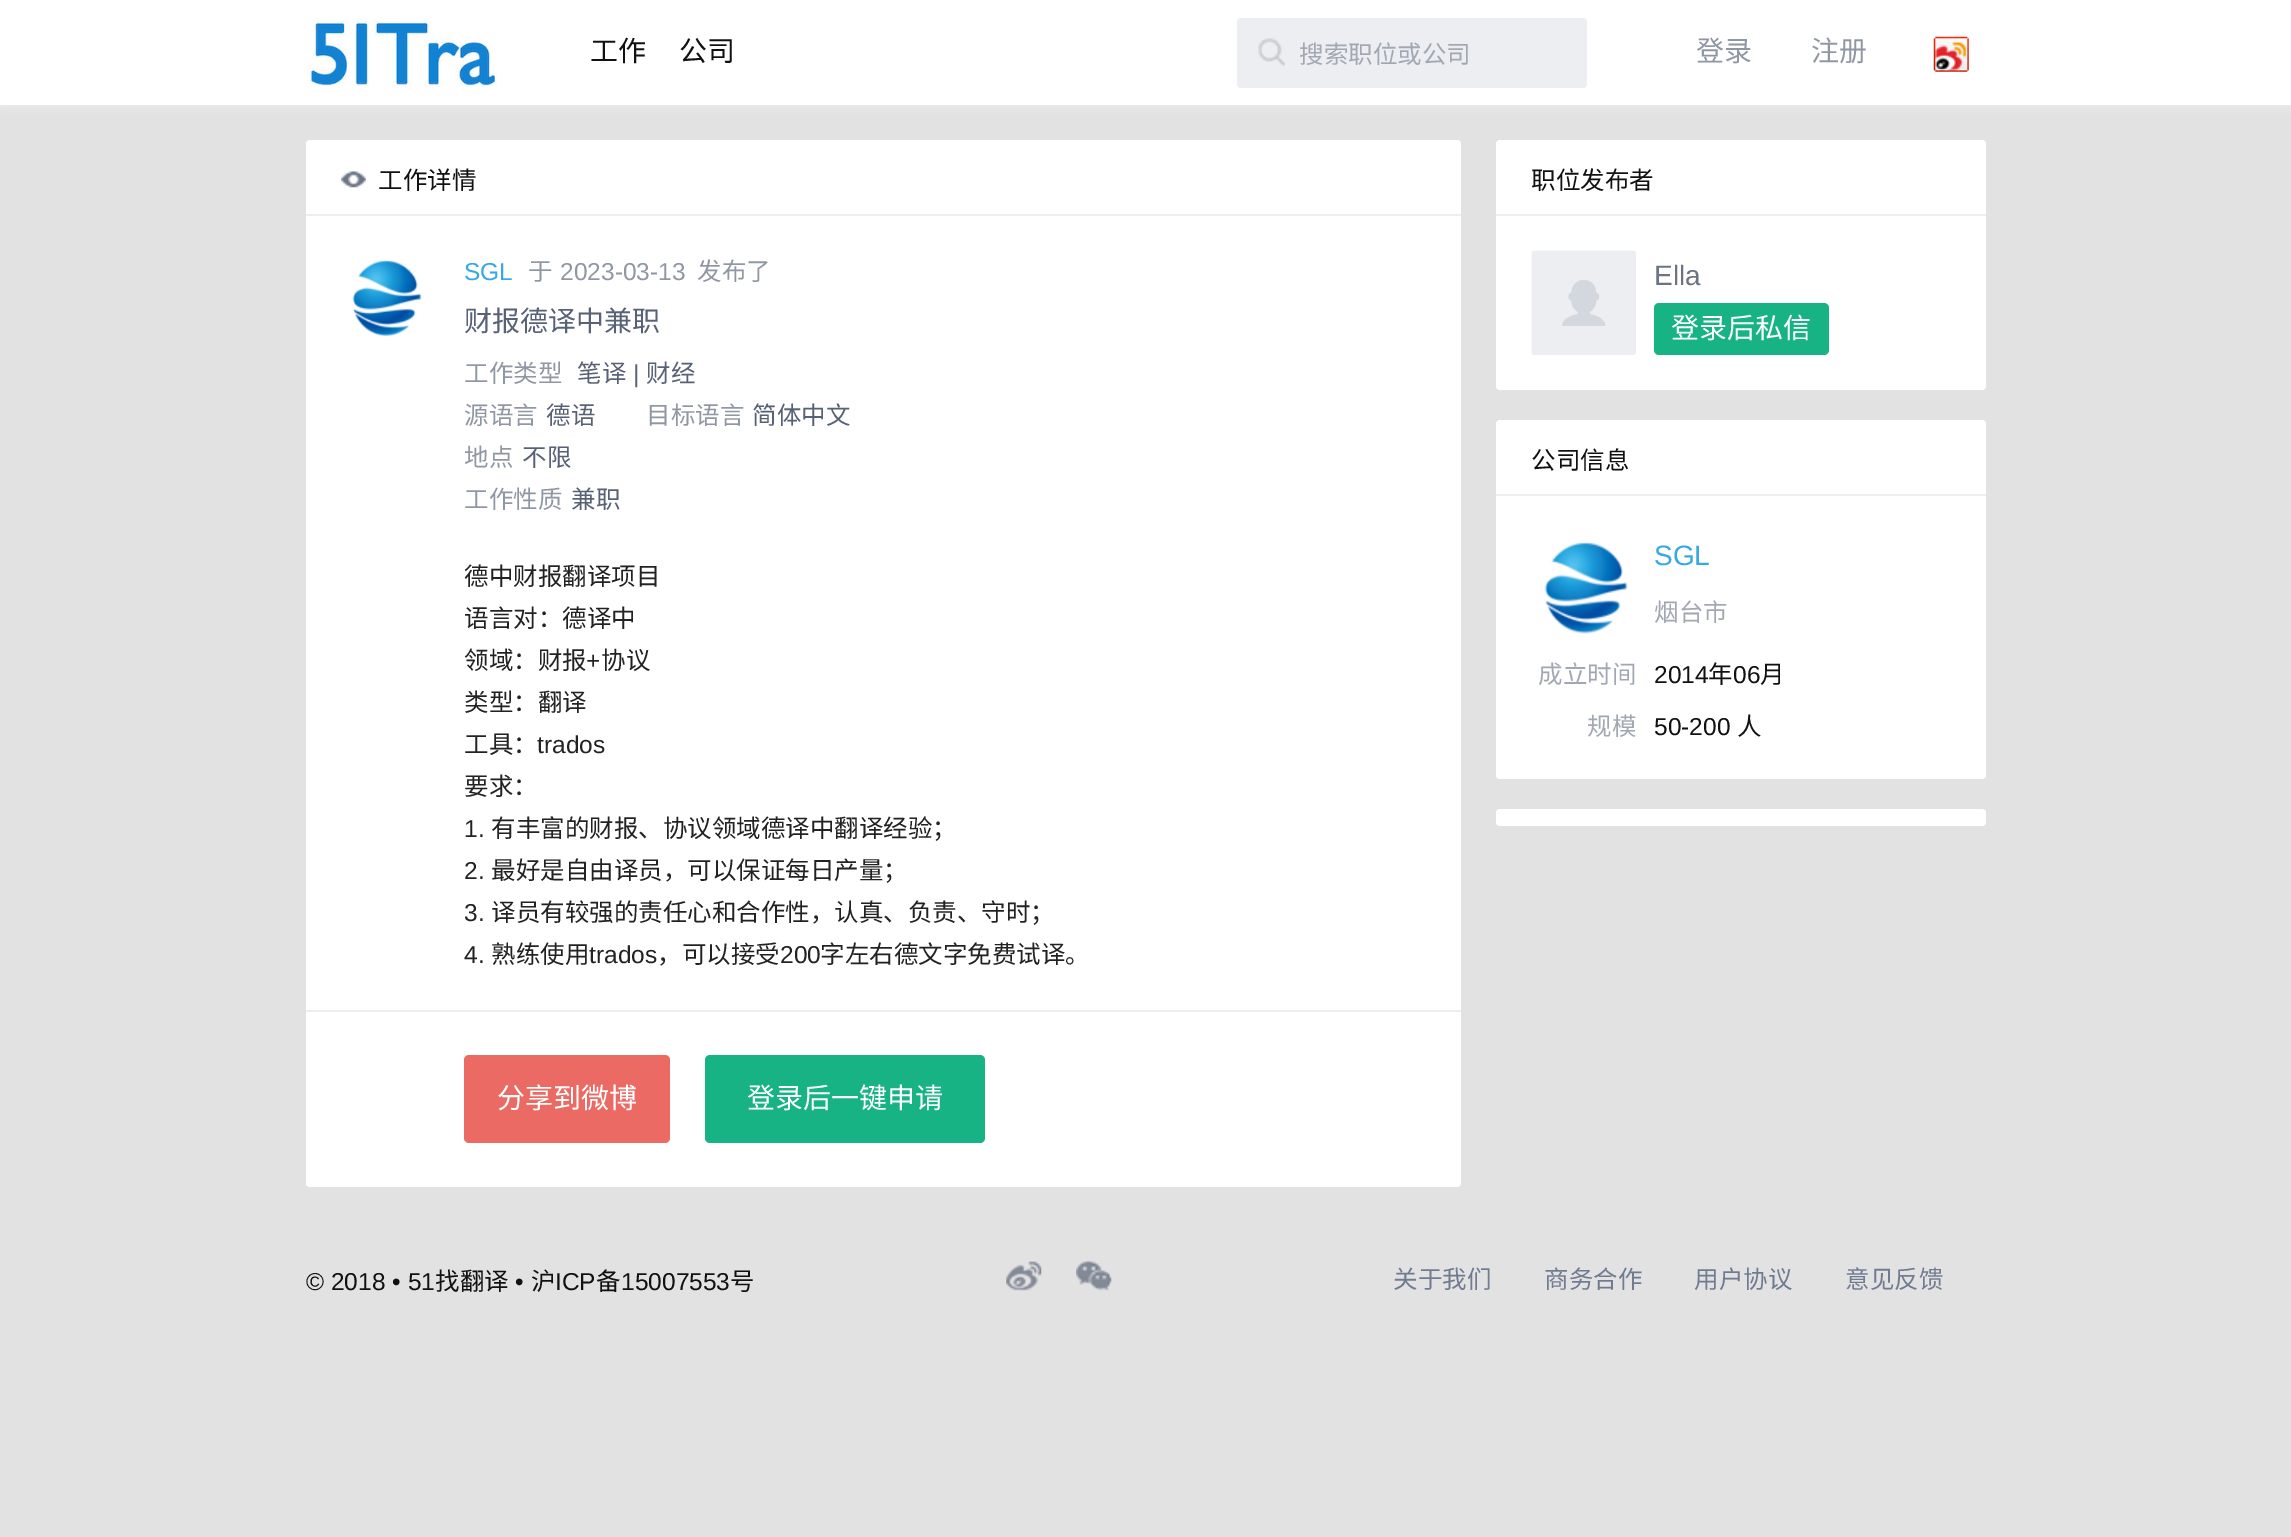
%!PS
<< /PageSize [2291 1537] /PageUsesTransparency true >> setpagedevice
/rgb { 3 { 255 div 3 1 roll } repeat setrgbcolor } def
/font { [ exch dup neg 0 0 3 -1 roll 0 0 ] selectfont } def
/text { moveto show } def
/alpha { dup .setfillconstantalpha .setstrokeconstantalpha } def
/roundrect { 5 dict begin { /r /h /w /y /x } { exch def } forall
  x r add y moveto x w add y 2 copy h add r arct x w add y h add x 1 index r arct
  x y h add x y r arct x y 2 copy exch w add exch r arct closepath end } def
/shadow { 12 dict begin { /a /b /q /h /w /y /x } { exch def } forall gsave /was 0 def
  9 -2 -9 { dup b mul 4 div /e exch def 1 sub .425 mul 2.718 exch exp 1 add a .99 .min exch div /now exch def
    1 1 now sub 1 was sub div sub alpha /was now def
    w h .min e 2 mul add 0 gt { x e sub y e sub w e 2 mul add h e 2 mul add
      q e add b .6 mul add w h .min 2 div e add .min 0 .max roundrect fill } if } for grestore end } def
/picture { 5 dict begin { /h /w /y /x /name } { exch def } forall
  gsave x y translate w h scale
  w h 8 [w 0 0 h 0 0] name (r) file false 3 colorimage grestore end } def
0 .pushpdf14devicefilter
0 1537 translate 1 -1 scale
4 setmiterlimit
226 226 226 rgb
0 0 2291 1537 rectfill
236 238 241 rgb
0 0 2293 105 0 9 1 shadow
255 255 255 rgb
0 0 2291 105 rectfill
(img_01.rgb) 306 18 191 69 picture
236 238 241 rgb
1237 18 350 70 4 roundrect fill
(img_02.rgb) 1258 38 27 29 picture
(img_03.rgb) 1933 36 36 36 picture
255 255 255 rgb
306 140 1155 1047 4 roundrect fill
(img_04.rgb) 341 171 25 17 picture
236 238 241 rgb
306 214 1155 2 rectfill
(img_05.rgb) 352 260 70 76 picture
306 1010 1155 2 rectfill
235 106 100 rgb
464 1055 206 88 5 roundrect fill
23 179 133 rgb
705 1055 280 88 5 roundrect fill
255 255 255 rgb
1496 140 490 250 4 roundrect fill
236 238 241 rgb
1496 214 490 2 rectfill
(img_06.rgb) 1531 250 105 105 picture
23 179 133 rgb
1654 303 175 52 5 roundrect fill
255 255 255 rgb
1496 420 490 359 4 roundrect fill
236 238 241 rgb
1496 494 490 2 rectfill
(img_07.rgb) 1544 542 84 92 picture
255 255 255 rgb
1496 809 490 17 4 roundrect fill
(img_08.rgb) 1006 1261 36 30 picture
(img_09.rgb) 1076 1260 36 31 picture
/NotoSansCJKSC-Regular 28 font
17 17 17 rgb
(工作) 590 61 text
(公司) 679 61 text
/NotoSansCJKSC-Regular 24.5 font
162 168 179 rgb
(搜索职位或公司) 1299 63 text
/NotoSansCJKSC-Regular 28 font
144 151 164 rgb
(登录) 1696 61 text
(注册) 1811 61 text
/NotoSansCJKSC-Regular 24.5 font
17 17 17 rgb
(工作详情) 378 189 text
/LiberationSans-Regular 24.5 font
54 169 229 rgb
(SGL) 464 280 text
/NotoSansCJKSC-Regular 24.5 font
144 151 164 rgb
(于) 528 280 text
/LiberationSans-Regular 24.5 font
(2023-03-13) 560 280 text
/NotoSansCJKSC-Regular 24.5 font
(发布了) 697 280 text
/NotoSansCJKSC-Regular 28 font
88 98 118 rgb
(财报德译中兼职) 464 331 text
/NotoSansCJKSC-Regular 24.5 font
144 151 164 rgb
(工作类型) 464 382 text
88 98 118 rgb
(笔译) 577 382 text
/LiberationSans-Regular 24.5 font
(|) 633 382 text
/NotoSansCJKSC-Regular 24.5 font
(财经) 646 382 text
144 151 164 rgb
(源语言) 464 424 text
88 98 118 rgb
(德语) 546 424 text
144 151 164 rgb
(目标语言) 646 424 text
88 98 118 rgb
(简体中文) 752 424 text
144 151 164 rgb
(地点) 464 466 text
88 98 118 rgb
(不限) 522 466 text
144 151 164 rgb
(工作性质) 464 508 text
88 98 118 rgb
(兼职) 571 508 text
34 34 34 rgb
(德中财报翻译项目) 464 585 text
(语言对：德译中) 464 627 text
(领域：财报) 464 669 text
/LiberationSans-Regular 24.5 font
(+) 586 669 text
/NotoSansCJKSC-Regular 24.5 font
(协议) 601 669 text
(类型：翻译) 464 711 text
(工具：) 464 753 text
/LiberationSans-Regular 24.5 font
(trados) 537 753 text
/NotoSansCJKSC-Regular 24.5 font
(要求：) 464 795 text
/LiberationSans-Regular 24.5 font
(1.) 464 837 text
/NotoSansCJKSC-Regular 24.5 font
(有丰富的财报、协议领域德译中翻译经验；) 491 837 text
/LiberationSans-Regular 24.5 font
(2.) 464 879 text
/NotoSansCJKSC-Regular 24.5 font
(最好是自由译员，可以保证每日产量；) 491 879 text
/LiberationSans-Regular 24.5 font
(3.) 464 921 text
/NotoSansCJKSC-Regular 24.5 font
(译员有较强的责任心和合作性，认真、负责、守时；) 491 921 text
/LiberationSans-Regular 24.5 font
(4.) 464 963 text
/NotoSansCJKSC-Regular 24.5 font
(熟练使用) 491 963 text
/LiberationSans-Regular 24.5 font
(trados) 589 963 text
/NotoSansCJKSC-Regular 24.5 font
(，可以接受) 657 963 text
/LiberationSans-Regular 24.5 font
(200) 780 963 text
/NotoSansCJKSC-Regular 24.5 font
(字左右德文字免费试译。) 820 963 text
/NotoSansCJKSC-Regular 28 font
255 255 255 rgb
(分享到微博) 497 1108 text
(登录后一键申请) 747 1108 text
/NotoSansCJKSC-Regular 24.5 font
17 17 17 rgb
(职位发布者) 1531 189 text
/LiberationSans-Regular 28 font
107 116 133 rgb
(Ella) 1654 285 text
/NotoSansCJKSC-Regular 28 font
255 255 255 rgb
(登录后私信) 1671 338 text
/NotoSansCJKSC-Regular 24.5 font
17 17 17 rgb
(公司信息) 1531 469 text
/LiberationSans-Regular 28 font
54 169 229 rgb
(SGL) 1654 565 text
/NotoSansCJKSC-Regular 24.5 font
162 168 179 rgb
(烟台市) 1654 621 text
(成立时间) 1538 683 text
/LiberationSans-Regular 24.5 font
17 17 17 rgb
(2014) 1654 683 text
/NotoSansCJKSC-Regular 24.5 font
(年) 1708 683 text
/LiberationSans-Regular 24.5 font
(06) 1733 683 text
/NotoSansCJKSC-Regular 24.5 font
(月) 1760 683 text
162 168 179 rgb
(规模) 1587 735 text
/LiberationSans-Regular 24.5 font
17 17 17 rgb
(50-200) 1654 735 text
/NotoSansCJKSC-Regular 24.5 font
(人) 1737 735 text
/LiberationSans-Regular 24.5 font
(© 2018 • 51) 306 1290 text
/NotoSansCJKSC-Regular 24.5 font
(找翻译) 435 1290 text
/LiberationSans-Regular 24.5 font
(•) 515 1290 text
/NotoSansCJKSC-Regular 24.5 font
(沪) 531 1290 text
/LiberationSans-Regular 24.5 font
(ICP) 555 1290 text
/NotoSansCJKSC-Regular 24.5 font
(备) 596 1290 text
/LiberationSans-Regular 24.5 font
(15007553) 621 1290 text
/NotoSansCJKSC-Regular 24.5 font
(号) 730 1290 text
112 123 145 rgb
(关于我们) 1393 1288 text
(商务合作) 1544 1288 text
(用户协议) 1694 1288 text
(意见反馈) 1845 1288 text
.poppdf14devicefilter showpage
